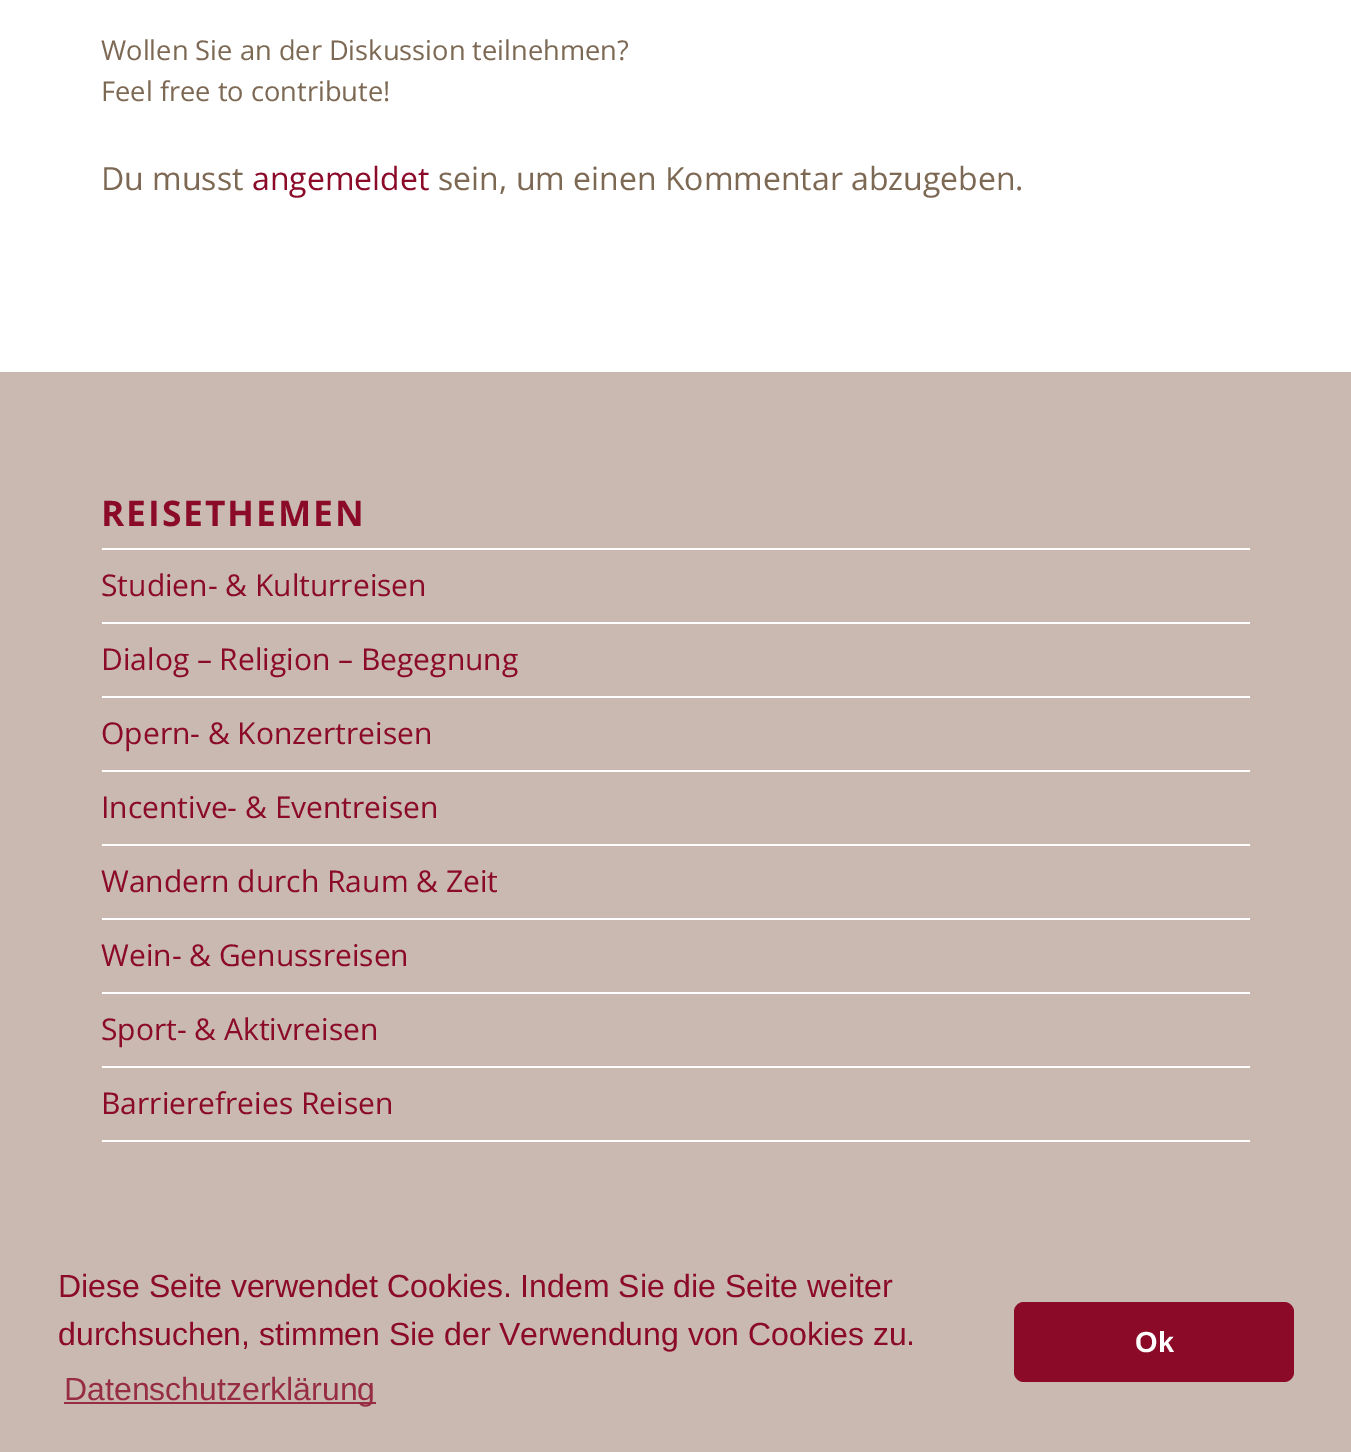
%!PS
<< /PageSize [1351 1452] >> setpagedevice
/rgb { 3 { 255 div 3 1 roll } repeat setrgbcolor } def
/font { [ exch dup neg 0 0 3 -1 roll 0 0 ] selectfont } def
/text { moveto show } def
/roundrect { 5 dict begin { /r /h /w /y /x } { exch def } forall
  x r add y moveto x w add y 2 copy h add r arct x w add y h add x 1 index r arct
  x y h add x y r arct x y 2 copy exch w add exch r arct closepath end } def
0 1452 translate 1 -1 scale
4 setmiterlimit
255 255 255 rgb
0 0 1351 1452 rectfill
201 185 177 rgb
0 372 1351 1080 rectfill
255 255 255 rgb
102 548 1148 2 rectfill
102 622 1148 2 rectfill
102 696 1148 2 rectfill
102 770 1148 2 rectfill
102 844 1148 2 rectfill
102 918 1148 2 rectfill
102 992 1148 2 rectfill
102 1066 1148 2 rectfill
102 1140 1148 2 rectfill
151 45 67 rgb
64 1402 312 2 rectfill
139 10 40 rgb
1014 1302 280 80 10 roundrect fill
/OpenSans-Regular 27.25 font
124 104 83 rgb
(Wollen Sie an der Diskussion teilnehmen?) 101 60 text
(Feel free to contribute!) 101 101 text
/OpenSans-Regular 32 font
(Du musst) 101 190 text
139 10 40 rgb
(angemeldet) 252 190 text
124 104 83 rgb
(sein, um einen Kommentar abzugeben.) 438 190 text
/OpenSans-Bold 35.25 font
139 10 40 rgb
101 526 moveto 2 0 (REISETHEMEN) ashow
/OpenSans-Regular 30 font
(Studien- & Kulturreisen) 101 596 text
(Dialog – Religion – Begegnung) 101 670 text
(Opern- & Konzertreisen) 101 744 text
(Incentive- & Eventreisen) 101 818 text
(Wandern durch Raum & Zeit) 101 892 text
(Wein- & Genussreisen) 101 966 text
(Sport- & Aktivreisen) 101 1040 text
(Barrierefreies Reisen) 101 1114 text
/LiberationSans-Regular 32 font
(Diese Seite verwendet Cookies. Indem Sie die Seite weiter) 58 1297 text
(durchsuchen, stimmen Sie der Verwendung von Cookies zu.) 58 1345 text
151 45 67 rgb
(Datenschutzerklärung) 64 1400 text
/LiberationSans-Bold 29 font
255 255 255 rgb
(Ok) 1135 1352 text
showpage
